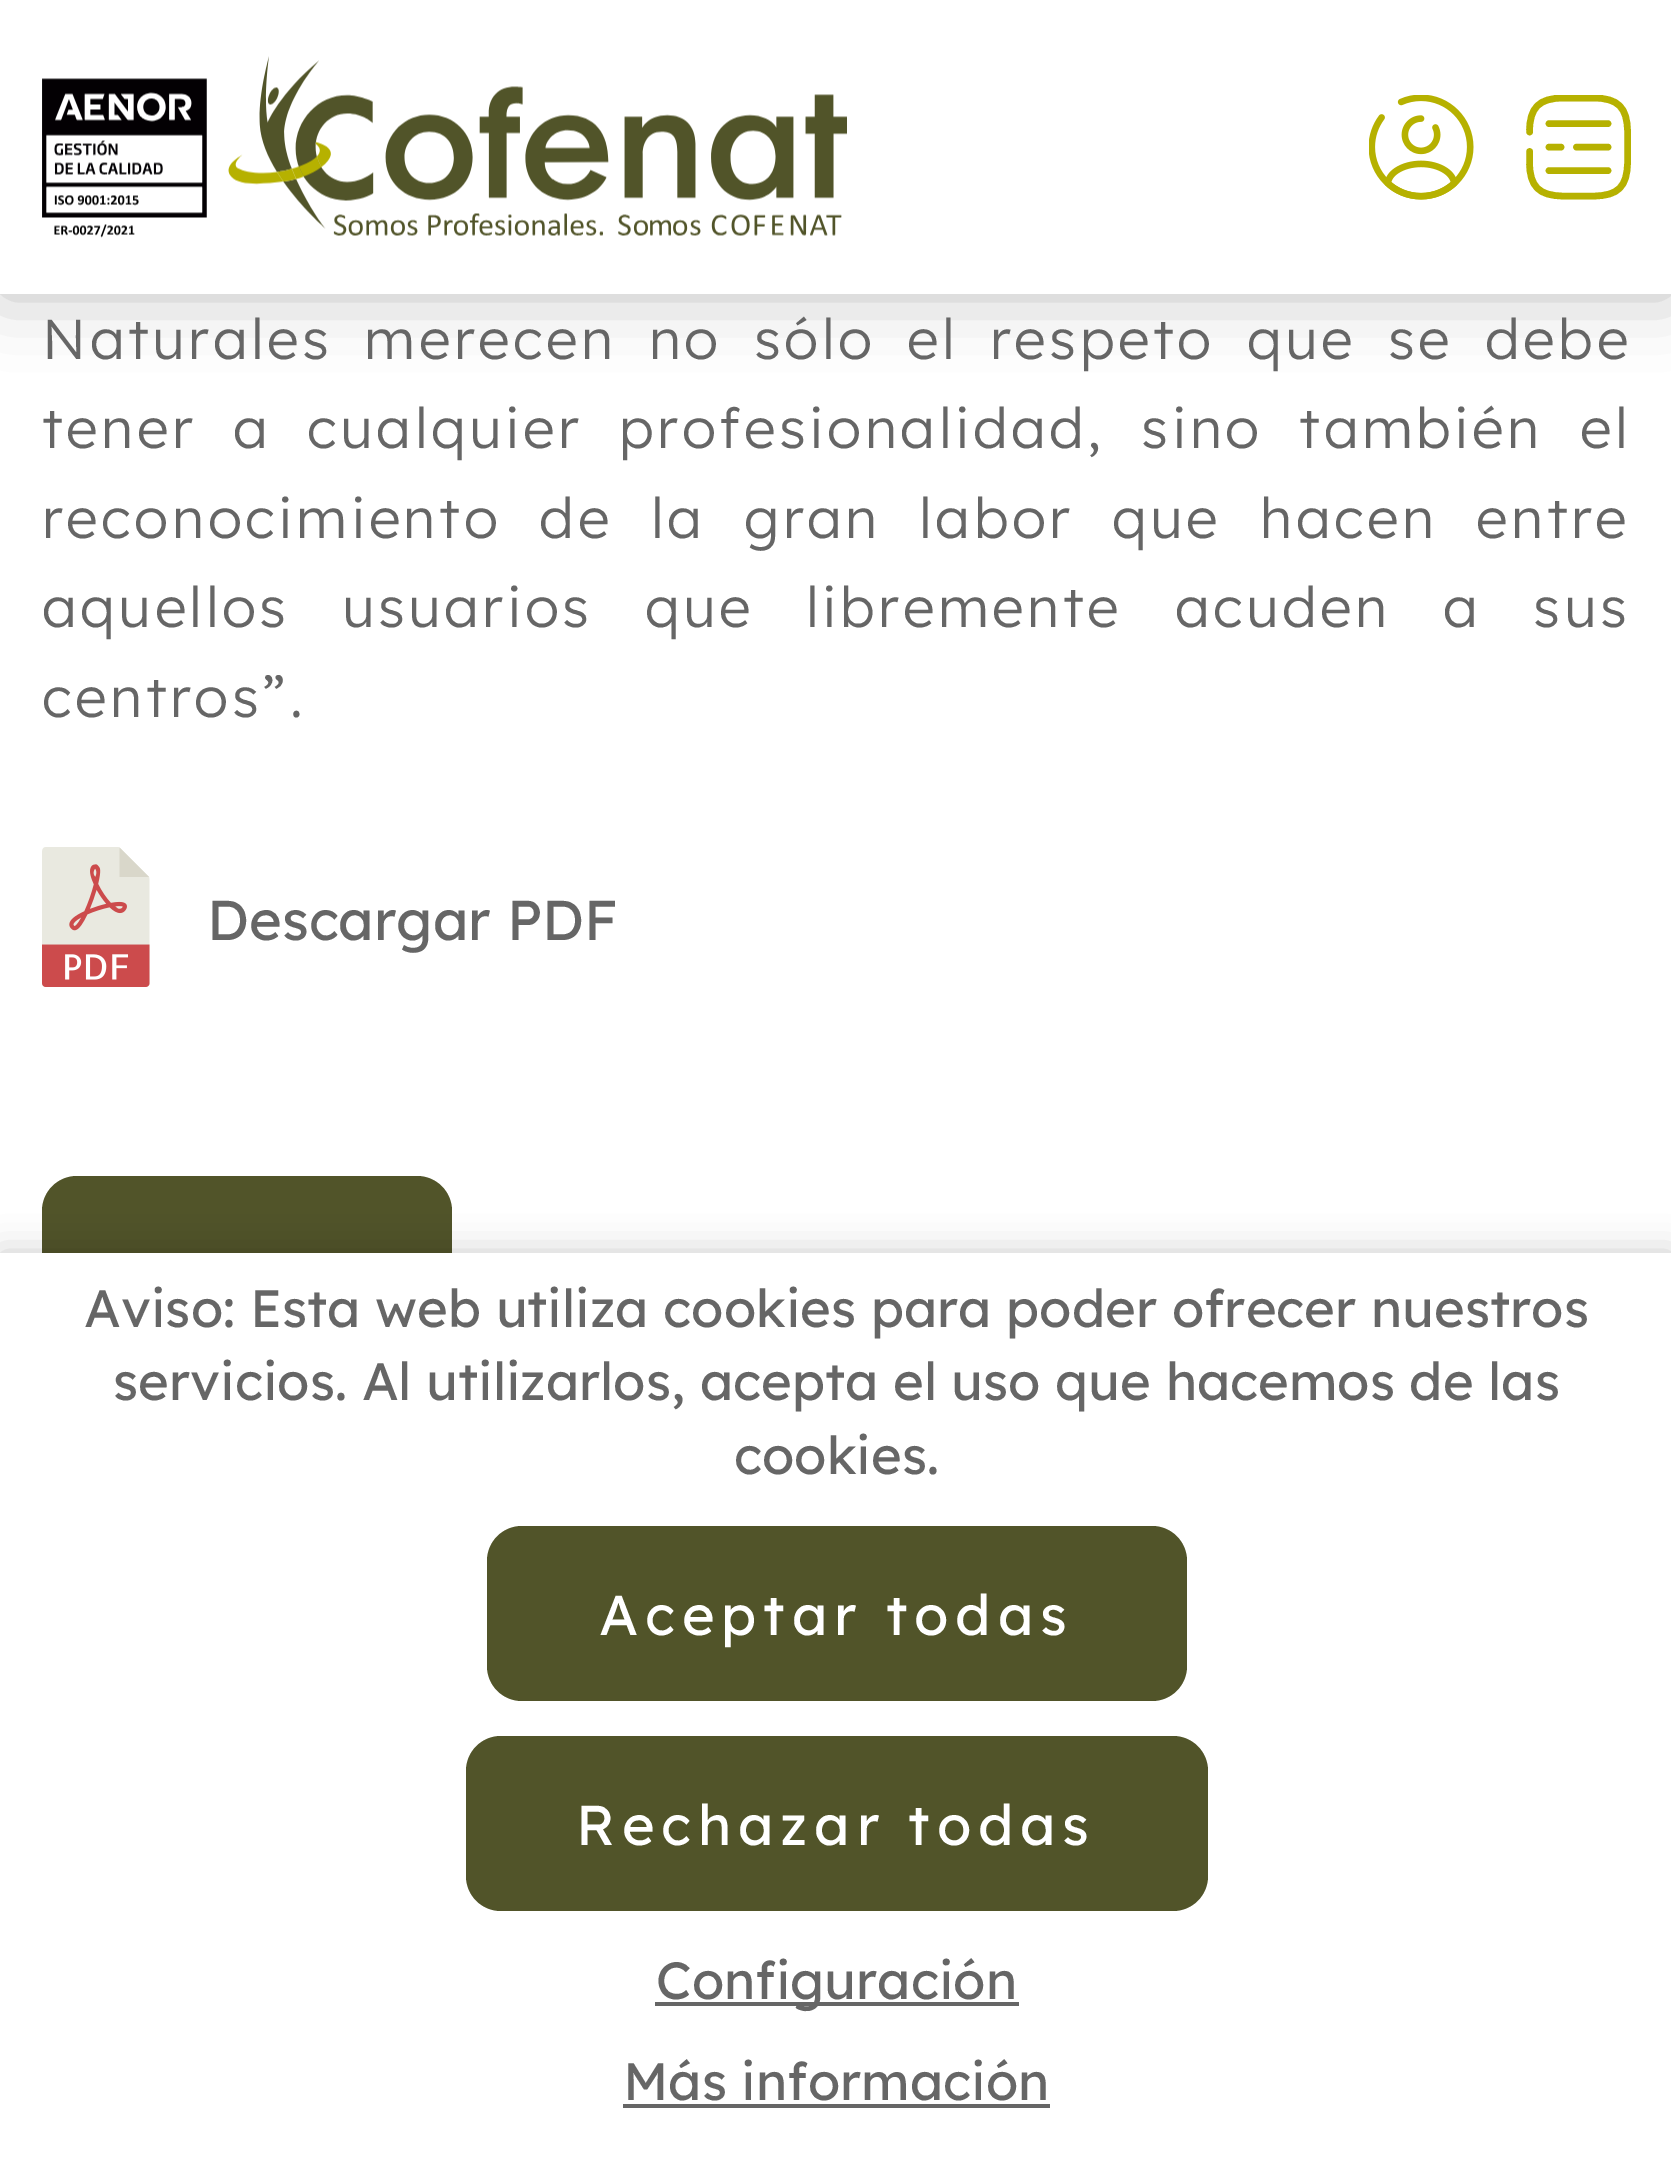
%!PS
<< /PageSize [1671 2182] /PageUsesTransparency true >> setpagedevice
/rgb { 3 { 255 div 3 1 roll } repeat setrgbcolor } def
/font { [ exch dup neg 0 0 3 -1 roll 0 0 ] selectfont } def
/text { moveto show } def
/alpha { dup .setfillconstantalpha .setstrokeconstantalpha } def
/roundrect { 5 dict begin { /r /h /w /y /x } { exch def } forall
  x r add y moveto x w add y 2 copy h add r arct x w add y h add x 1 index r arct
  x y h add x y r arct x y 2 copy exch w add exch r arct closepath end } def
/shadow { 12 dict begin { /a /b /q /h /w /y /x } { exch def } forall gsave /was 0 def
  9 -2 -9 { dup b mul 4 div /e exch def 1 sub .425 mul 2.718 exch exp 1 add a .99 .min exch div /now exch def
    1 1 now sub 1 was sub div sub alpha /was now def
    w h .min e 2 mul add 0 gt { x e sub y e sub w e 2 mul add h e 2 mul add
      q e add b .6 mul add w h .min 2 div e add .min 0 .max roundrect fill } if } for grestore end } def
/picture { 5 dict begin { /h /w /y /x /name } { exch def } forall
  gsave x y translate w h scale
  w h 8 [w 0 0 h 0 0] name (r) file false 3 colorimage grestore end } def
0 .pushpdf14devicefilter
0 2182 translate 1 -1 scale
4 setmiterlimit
255 255 255 rgb
0 0 1671 2182 rectfill
0 0 0 rgb
0 0 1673 294 0 35 0.25 shadow
255 255 255 rgb
0 0 1671 294 rectfill
(img_01.rgb) 42 56 805 182 picture
(img_02.rgb) 1369 95 105 105 picture
gsave
1526 95 105 105 rectclip
182 177 0 rgb
6.6 setlinewidth
1 setlinecap
1 setlinejoin
1529.5 151.5 moveto 0 10.5 rlineto 0 24.5 9.5 34 34 34 rcurveto 30 0 rlineto 24.5 0 34 -9.5 34 -34 rcurveto 0 -30 rlineto 0 -24.5 -9.5 -34 -34 -34 rcurveto -30 0 rlineto -24.5 0 -34 9.5 -34 34 rcurveto stroke
grestore
182 177 0 rgb
6.6 setlinewidth
1 setlinecap
1549 123.5 moveto 59 0 rlineto stroke
1549 147 moveto 12 0 rlineto stroke
1576.5 147 moveto 31.5 0 rlineto stroke
1549 170.5 moveto 59 0 rlineto stroke
(img_03.rgb) 42 847 108 140 picture
81 84 41 rgb
42 1176 410 172 35 roundrect fill
0 0 0 rgb
0 1253 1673 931 0 17.5 0.2 shadow
255 255 255 rgb
0 1253 1671 929 rectfill
81 84 41 rgb
487 1526 700 175 35 roundrect fill
466 1736 742 175 35 roundrect fill
102 102 102 rgb
655 2002 364 4 rectfill
623 2104 427 4 rectfill
/Lexend-Light 56 font
42 359 moveto 12.75 0 32 3.5 0 (Naturales merecen no sólo el respeto que se debe) awidthshow
42 448 moveto 17.25 0 32 3.5 0 (tener a cualquier profesionalidad, sino también el) awidthshow
42 538 moveto 19.25 0 32 3.5 0 (reconocimiento de la gran labor que hacen entre) awidthshow
42 627 moveto 33 0 32 3.5 0 (aquellos usuarios que libremente acuden a sus) awidthshow
42 717 moveto 3.5 0 (centros”.) ashow
/Lexend-Regular 56 font
(Descargar PDF) 207 940 text
/Lexend-Regular 52.5 font
(Aviso: Esta web utiliza cookies para poder ofrecer nuestros) 84 1327 text
(servicios. Al utilizarlos, acepta el uso que hacemos de las) 113 1400 text
(cookies.) 734 1474 text
/Lexend-Regular 56 font
255 255 255 rgb
599 1635 moveto 6.8 0 (Aceptar todas) ashow
576 1845 moveto 6.8 0 (Rechazar todas) ashow
/Lexend-Regular 52.5 font
102 102 102 rgb
(Configuración) 656 1999 text
(Más información) 623 2100 text
.poppdf14devicefilter showpage
